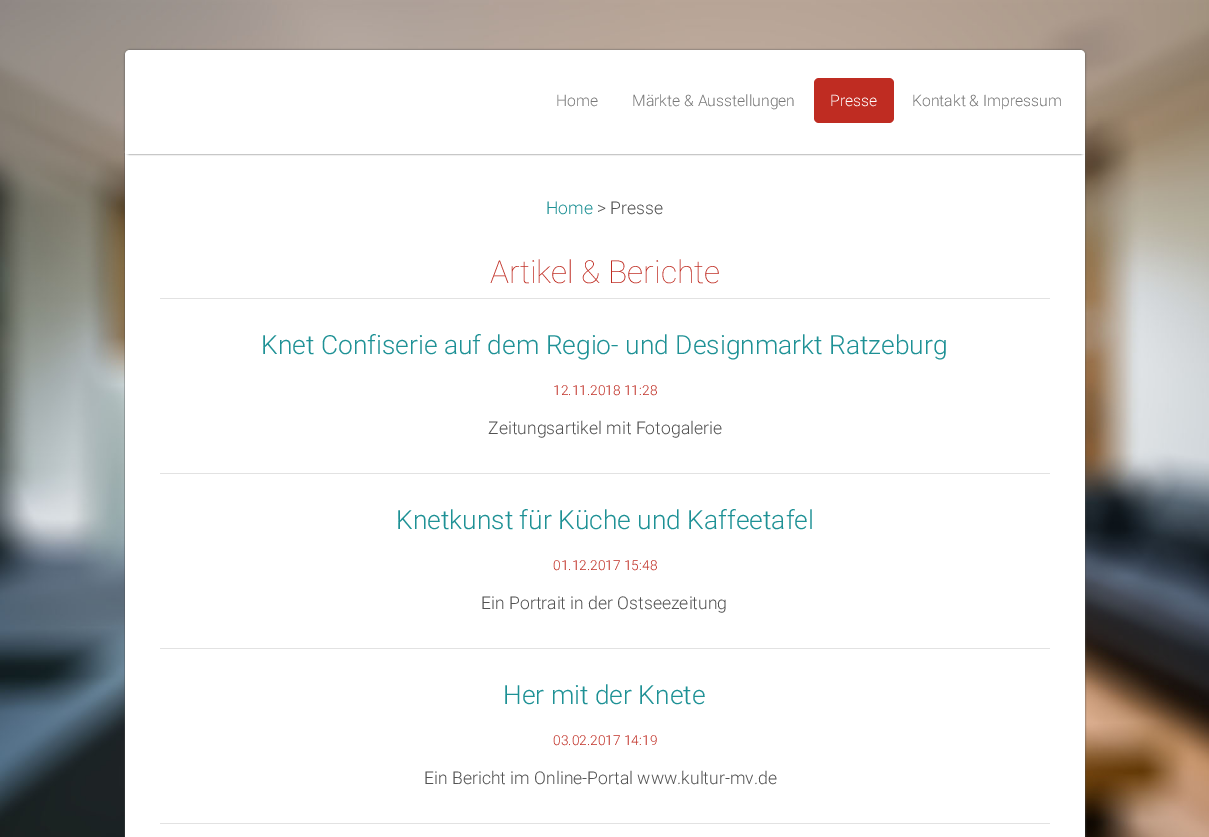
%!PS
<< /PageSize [1209 837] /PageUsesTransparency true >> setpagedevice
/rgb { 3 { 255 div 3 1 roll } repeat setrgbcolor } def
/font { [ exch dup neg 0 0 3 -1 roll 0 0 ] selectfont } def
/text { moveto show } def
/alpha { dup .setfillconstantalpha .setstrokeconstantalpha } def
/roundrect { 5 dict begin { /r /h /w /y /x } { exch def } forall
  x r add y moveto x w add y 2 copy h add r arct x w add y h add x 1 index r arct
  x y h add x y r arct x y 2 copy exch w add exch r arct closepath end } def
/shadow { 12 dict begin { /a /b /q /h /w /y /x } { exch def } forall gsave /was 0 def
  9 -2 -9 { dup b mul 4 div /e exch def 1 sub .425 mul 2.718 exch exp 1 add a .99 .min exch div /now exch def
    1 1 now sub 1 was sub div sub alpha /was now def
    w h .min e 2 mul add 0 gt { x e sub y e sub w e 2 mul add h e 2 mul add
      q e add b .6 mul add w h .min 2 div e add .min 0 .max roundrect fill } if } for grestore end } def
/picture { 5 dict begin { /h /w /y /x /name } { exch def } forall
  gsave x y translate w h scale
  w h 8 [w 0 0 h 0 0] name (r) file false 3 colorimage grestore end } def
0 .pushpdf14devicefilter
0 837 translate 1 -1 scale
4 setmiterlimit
255 255 255 rgb
0 0 1209 837 rectfill
(img_01.rgb) 0 0 1209 837 picture
0.32 alpha
76 76 76 rgb
124.5 153.5 961 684 rectstroke
1 alpha
255 255 255 rgb
125 154 960 683 rectfill
76 76 76 rgb
125 50 960 104 5 1 1 shadow
255 255 255 rgb
130 50 moveto 950 0 rlineto 3 0 5 2 5 5 rcurveto 0 99 rlineto -960 0 rlineto 0 -99 rlineto 0 -3 2 -5 5 -5 rcurveto closepath fill
191 44 34 rgb
814 78 80 45 5 roundrect fill
226 226 226 rgb
160 298 890 1 rectfill
160 473 890 1 rectfill
160 648 890 1 rectfill
160 823 890 1 rectfill
/Roboto-Light 15.75 font
119 119 119 rgb
(Home) 556 106 text
(Märkte & Ausstellungen) 632 106 text
255 255 255 rgb
(Presse) 830 106 text
119 119 119 rgb
(Kontakt & Impressum) 912 106 text
/Roboto-Light 17.6 font
30 145 149 rgb
(Home) 546 214 text
83 83 83 rgb
(> Presse) 597 214 text
/Roboto-Thin 31.75 font
191 44 34 rgb
(Artikel & Berichte) 490 283 text
/Roboto-Light 26.4 font
30 145 149 rgb
(Knet Confiserie auf dem Regio- und Designmarkt Ratzeburg) 261 354 text
/Roboto-Light 13.75 font
191 44 34 rgb
(12.11.2018 11:28) 553 395 text
/Roboto-Light 17.6 font
83 83 83 rgb
(Zeitungsartikel mit Fotogalerie) 488 434 text
/Roboto-Light 26.4 font
30 145 149 rgb
(Knetkunst für Küche und Kaffeetafel) 396 529 text
/Roboto-Light 13.75 font
191 44 34 rgb
(01.12.2017 15:48) 553 570 text
/Roboto-Light 17.6 font
83 83 83 rgb
(Ein Portrait in der Ostseezeitung) 481 609 text
/Roboto-Light 26.4 font
30 145 149 rgb
(Her mit der Knete) 503 704 text
/Roboto-Light 13.75 font
191 44 34 rgb
(03.02.2017 14:19) 553 745 text
/Roboto-Light 17.6 font
83 83 83 rgb
(Ein Bericht im Online-Portal www.kultur-mv.de) 424 784 text
.poppdf14devicefilter showpage
